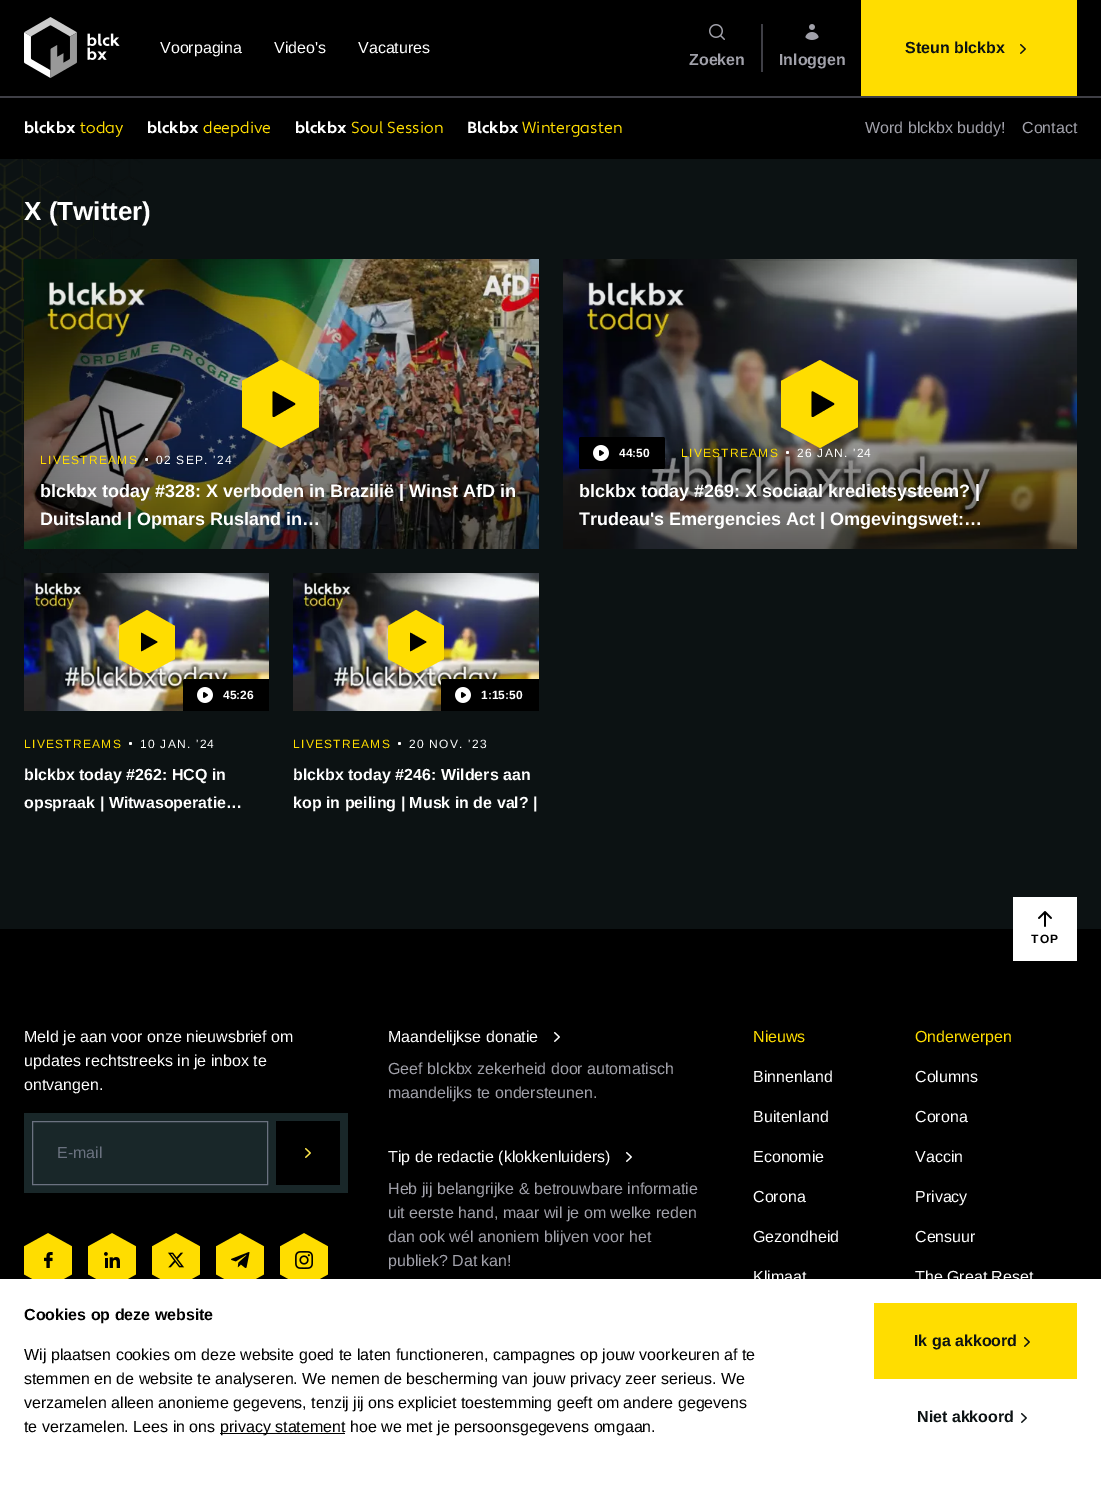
%!PS
<< /PageSize [1101 1495] >> setpagedevice
/rgb { 3 { 255 div 3 1 roll } repeat setrgbcolor } def
/font { [ exch dup neg 0 0 3 -1 roll 0 0 ] selectfont } def
/text { moveto show } def
/circle { newpath 0 360 arc closepath } def
/roundrect { 5 dict begin { /r /h /w /y /x } { exch def } forall
  x r add y moveto x w add y 2 copy h add r arct x w add y h add x 1 index r arct
  x y h add x y r arct x y 2 copy exch w add exch r arct closepath end } def
/picture { 5 dict begin { /h /w /y /x /name } { exch def } forall
  gsave x y translate w h scale
  w h 8 [w 0 0 h 0 0] name (r) file false 3 colorimage grestore end } def
0 1495 translate 1 -1 scale
4 setmiterlimit
12 18 19 rgb
0 0 1101 1495 rectfill
0 0 0 rgb
0 0 1101 159 rectfill
63 63 70 rgb
0 96 1101 2 rectfill
(img_01.rgb) 24 17 96 61 picture
(img_02.rgb) 709 24 16 16 picture
761 24 2 48 rectfill
(img_03.rgb) 805 24 14 16 picture
255 221 0 rgb
861 0 216 96 rectfill
(img_04.rgb) 1020 44 6 10 picture
(img_18.rgb) 0 159 143 426 picture
(img_05.rgb) 24 259 515 290 picture
281 360 moveto 38 21 rlineto 0 46 rlineto -38 21 rlineto -39 -21 rlineto 0 -46 rlineto closepath fill
0 0 0 rgb
294.5 403 moveto 1 0.5 1 1.5 0 2 rcurveto -20.5 12 rlineto -0.5 0 -1.5 -0.5 -1.5 -1 rcurveto 0 -23.5 rlineto 0 -1 1 -1.5 1.5 -1 rcurveto closepath fill
255 255 255 rgb
146.5 459.5 1.5 circle fill
(img_06.rgb) 563 259 514 290 picture
255 221 0 rgb
820 360 moveto 38 21 rlineto 0 46 rlineto -38 21 rlineto -39 -21 rlineto 0 -46 rlineto closepath fill
0 0 0 rgb
833.5 403 moveto 1 0.5 1 1.5 0 2 rcurveto -20.5 12 rlineto -0.5 0 -1.5 -0.5 -1.5 -1 rcurveto 0 -23.5 rlineto 0 -1 1 -1.5 1.5 -1 rcurveto closepath fill
579 437 86 32 2 roundrect fill
(img_07.rgb) 593 445 16 16 picture
255 255 255 rgb
787.5 452.5 1.5 circle fill
(img_08.rgb) 24 573 245 138 picture
gsave
119 610 56 63 rectclip
255 221 0 rgb
147 610 moveto 28 16 rlineto 0 33 rlineto -28 15 rlineto -28 -15 rlineto 0 -33 rlineto closepath fill
grestore
0 0 0 rgb
157 641.5 moveto 0.5 0 0.5 1 0 1 rcurveto -15 8.5 rlineto -0.5 0.5 -1 0 -1 -0.5 rcurveto 0 -17 rlineto 0 -0.5 0.5 -1 1 -0.5 rcurveto closepath fill
185 679 moveto 84 0 rlineto 0 32 rlineto -86 0 rlineto 0 -30 rlineto 0 -1 1 -2 2 -2 rcurveto closepath fill
(img_07.rgb) 197 687 16 16 picture
255 255 255 rgb
130.5 743.5 1.5 circle fill
(img_09.rgb) 293 573 246 138 picture
gsave
388 610 56 63 rectclip
255 221 0 rgb
416 610 moveto 28 16 rlineto 0 33 rlineto -28 15 rlineto -28 -15 rlineto 0 -33 rlineto closepath fill
grestore
0 0 0 rgb
426 641.5 moveto 0.5 0 0.5 1 0 1 rcurveto -15 8.5 rlineto -0.5 0.5 -1 0 -1 -0.5 rcurveto 0 -17 rlineto 0 -0.5 0.5 -1 1 -0.5 rcurveto closepath fill
443 679 moveto 96 0 rlineto 0 32 rlineto -98 0 rlineto 0 -30 rlineto 0 -1 1 -2 2 -2 rcurveto closepath fill
(img_07.rgb) 455 687 16 16 picture
255 255 255 rgb
399.5 743.5 1.5 circle fill
0 0 0 rgb
0 929 1101 350 rectfill
255 255 255 rgb
1013 897 64 64 rectfill
(img_10.rgb) 1038 911 14 16 picture
25 39 41 rgb
24 1113 324 80 rectfill
107 114 128 rgb
32.5 1121.5 235 63 rectstroke
0 0 0 rgb
276 1121 64 64 rectfill
(img_11.rgb) 305 1148 6 10 picture
(img_12.rgb) 24 1233 48 46 picture
(img_13.rgb) 88 1233 48 46 picture
(img_14.rgb) 152 1233 48 46 picture
(img_15.rgb) 216 1233 48 46 picture
(img_16.rgb) 280 1233 48 46 picture
(img_17.rgb) 554 1032 6 10 picture
(img_17.rgb) 626 1152 6 10 picture
255 255 255 rgb
0 1279 1101 216 rectfill
0 0 0 rgb
220 1433 125 1 rectfill
255 221 0 rgb
874 1303 203 76 rectfill
(img_04.rgb) 1024 1337 6 10 picture
(img_19.rgb) 1021 1413 6 10 picture
/LiberationSans-Regular 16 font
255 255 255 rgb
(Voorpagina) 160 53 text
(Video's) 274 53 text
(Vacatures) 358 53 text
/LiberationSans-Bold 16 font
161 161 170 rgb
(Zoeken) 689 65 text
(Inloggen) 779 65 text
12 18 19 rgb
(Steun blckbx) 905 53 text
/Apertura-Bold 16 font
255 255 255 rgb
(blckbx) 24 133 text
/Apertura-Regular 16 font
255 221 0 rgb
(today) 80 133 text
/Apertura-Bold 16 font
255 255 255 rgb
(blckbx) 147 133 text
/Apertura-Regular 16 font
255 221 0 rgb
(deepdive) 203 133 text
/Apertura-Bold 16 font
255 255 255 rgb
(blckbx) 295 133 text
/Apertura-Regular 16 font
255 221 0 rgb
(Soul Session) 351 133 text
/Apertura-Bold 16 font
255 255 255 rgb
(Blckbx) 467 133 text
/Apertura-Regular 16 font
255 221 0 rgb
(Wintergasten) 522 133 text
/LiberationSans-Regular 16 font
161 161 170 rgb
(Word blckbx buddy!) 865 133 text
(Contact) 1022 133 text
/LiberationSans-Bold 26 font
255 255 255 rgb
(X \(Twitter\)) 24 220 text
/LiberationSans-Regular 12 font
255 221 0 rgb
40 464 moveto 1.25 0 (LIVESTREAMS) ashow
255 255 255 rgb
156 464 moveto 1.25 0 (02 SEP. '24) ashow
/LiberationSans-Bold 18 font
(blckbx today #328: X verboden in Brazilië | Winst AfD in) 40 497 text
(Duitsland | Opmars Rusland in…) 40 525 text
/LiberationSans-Bold 12 font
(44:50) 619 457 text
/LiberationSans-Regular 12 font
255 221 0 rgb
681 457 moveto 1.25 0 (LIVESTREAMS) ashow
255 255 255 rgb
797 457 moveto 1.25 0 (26 JAN. '24) ashow
/LiberationSans-Bold 18 font
(blckbx today #269: X sociaal kredietsysteem? |) 579 497 text
(Trudeau's Emergencies Act | Omgevingswet:…) 579 525 text
/LiberationSans-Bold 12 font
(45:26) 223 699 text
/LiberationSans-Regular 12 font
255 221 0 rgb
24 748 moveto 1.25 0 (LIVESTREAMS) ashow
255 255 255 rgb
140 748 moveto 1.25 0 (10 JAN. '24) ashow
/LiberationSans-Bold 16 font
(blckbx today #262: HCQ in) 24 780 text
(opspraak | Witwasoperatie…) 24 808 text
/LiberationSans-Bold 12 font
(1:15:50) 481 699 text
/LiberationSans-Regular 12 font
255 221 0 rgb
293 748 moveto 1.25 0 (LIVESTREAMS) ashow
255 255 255 rgb
409 748 moveto 1.25 0 (20 NOV. '23) ashow
/LiberationSans-Bold 16 font
(blckbx today #246: Wilders aan) 293 780 text
(kop in peiling | Musk in de val? |) 293 808 text
/LiberationSans-Bold 12 font
0 0 0 rgb
1031 943 moveto 1.25 0 (TOP) ashow
/LiberationSans-Regular 16 font
255 255 255 rgb
(Meld je aan voor onze nieuwsbrief om) 24 1042 text
(updates rechtstreeks in je inbox te) 24 1066 text
(ontvangen.) 24 1090 text
107 114 128 rgb
(E-mail) 57 1158 text
255 255 255 rgb
(Maandelijkse donatie) 388 1042 text
161 161 170 rgb
(Geef blckbx zekerheid door automatisch) 388 1074 text
(maandelijks te ondersteunen.) 388 1098 text
255 255 255 rgb
(Tip de redactie \(klokkenluiders\)) 388 1162 text
161 161 170 rgb
(Heb jij belangrijke & betrouwbare informatie) 388 1194 text
(uit eerste hand, maar wil je om welke reden) 388 1218 text
(dan ook wél anoniem blijven voor het) 388 1242 text
(publiek? Dat kan!) 388 1266 text
255 221 0 rgb
(Nieuws) 753 1042 text
255 255 255 rgb
(Binnenland) 753 1082 text
(Buitenland) 753 1122 text
(Economie) 753 1162 text
(Corona) 753 1202 text
(Gezondheid) 753 1242 text
(Klimaat) 753 1282 text
255 221 0 rgb
(Onderwerpen) 915 1042 text
255 255 255 rgb
(Columns) 915 1082 text
(Corona) 915 1122 text
(Vaccin) 915 1162 text
(Privacy) 915 1202 text
(Censuur) 915 1242 text
(The Great Reset) 915 1282 text
/LiberationSans-Bold 16 font
0 0 0 rgb
(Cookies op deze website) 24 1320 text
/LiberationSans-Regular 16 font
(Wij plaatsen cookies om deze website goed te laten functioneren, campagnes op jouw voorkeuren af te) 24 1360 text
(stemmen en de website te analyseren. We nemen de bescherming van jouw privacy zeer serieus. We) 24 1384 text
(verzamelen alleen anonieme gegevens, tenzij jij ons expliciet toestemming geeft om andere gegevens) 24 1408 text
(te verzamelen. Lees in ons) 24 1432 text
(privacy statement hoe we met je persoonsgegevens omgaan.) 220 1432 text
/LiberationSans-Bold 16 font
12 18 19 rgb
(Ik ga akkoord) 914 1346 text
(Niet akkoord) 917 1422 text
showpage
